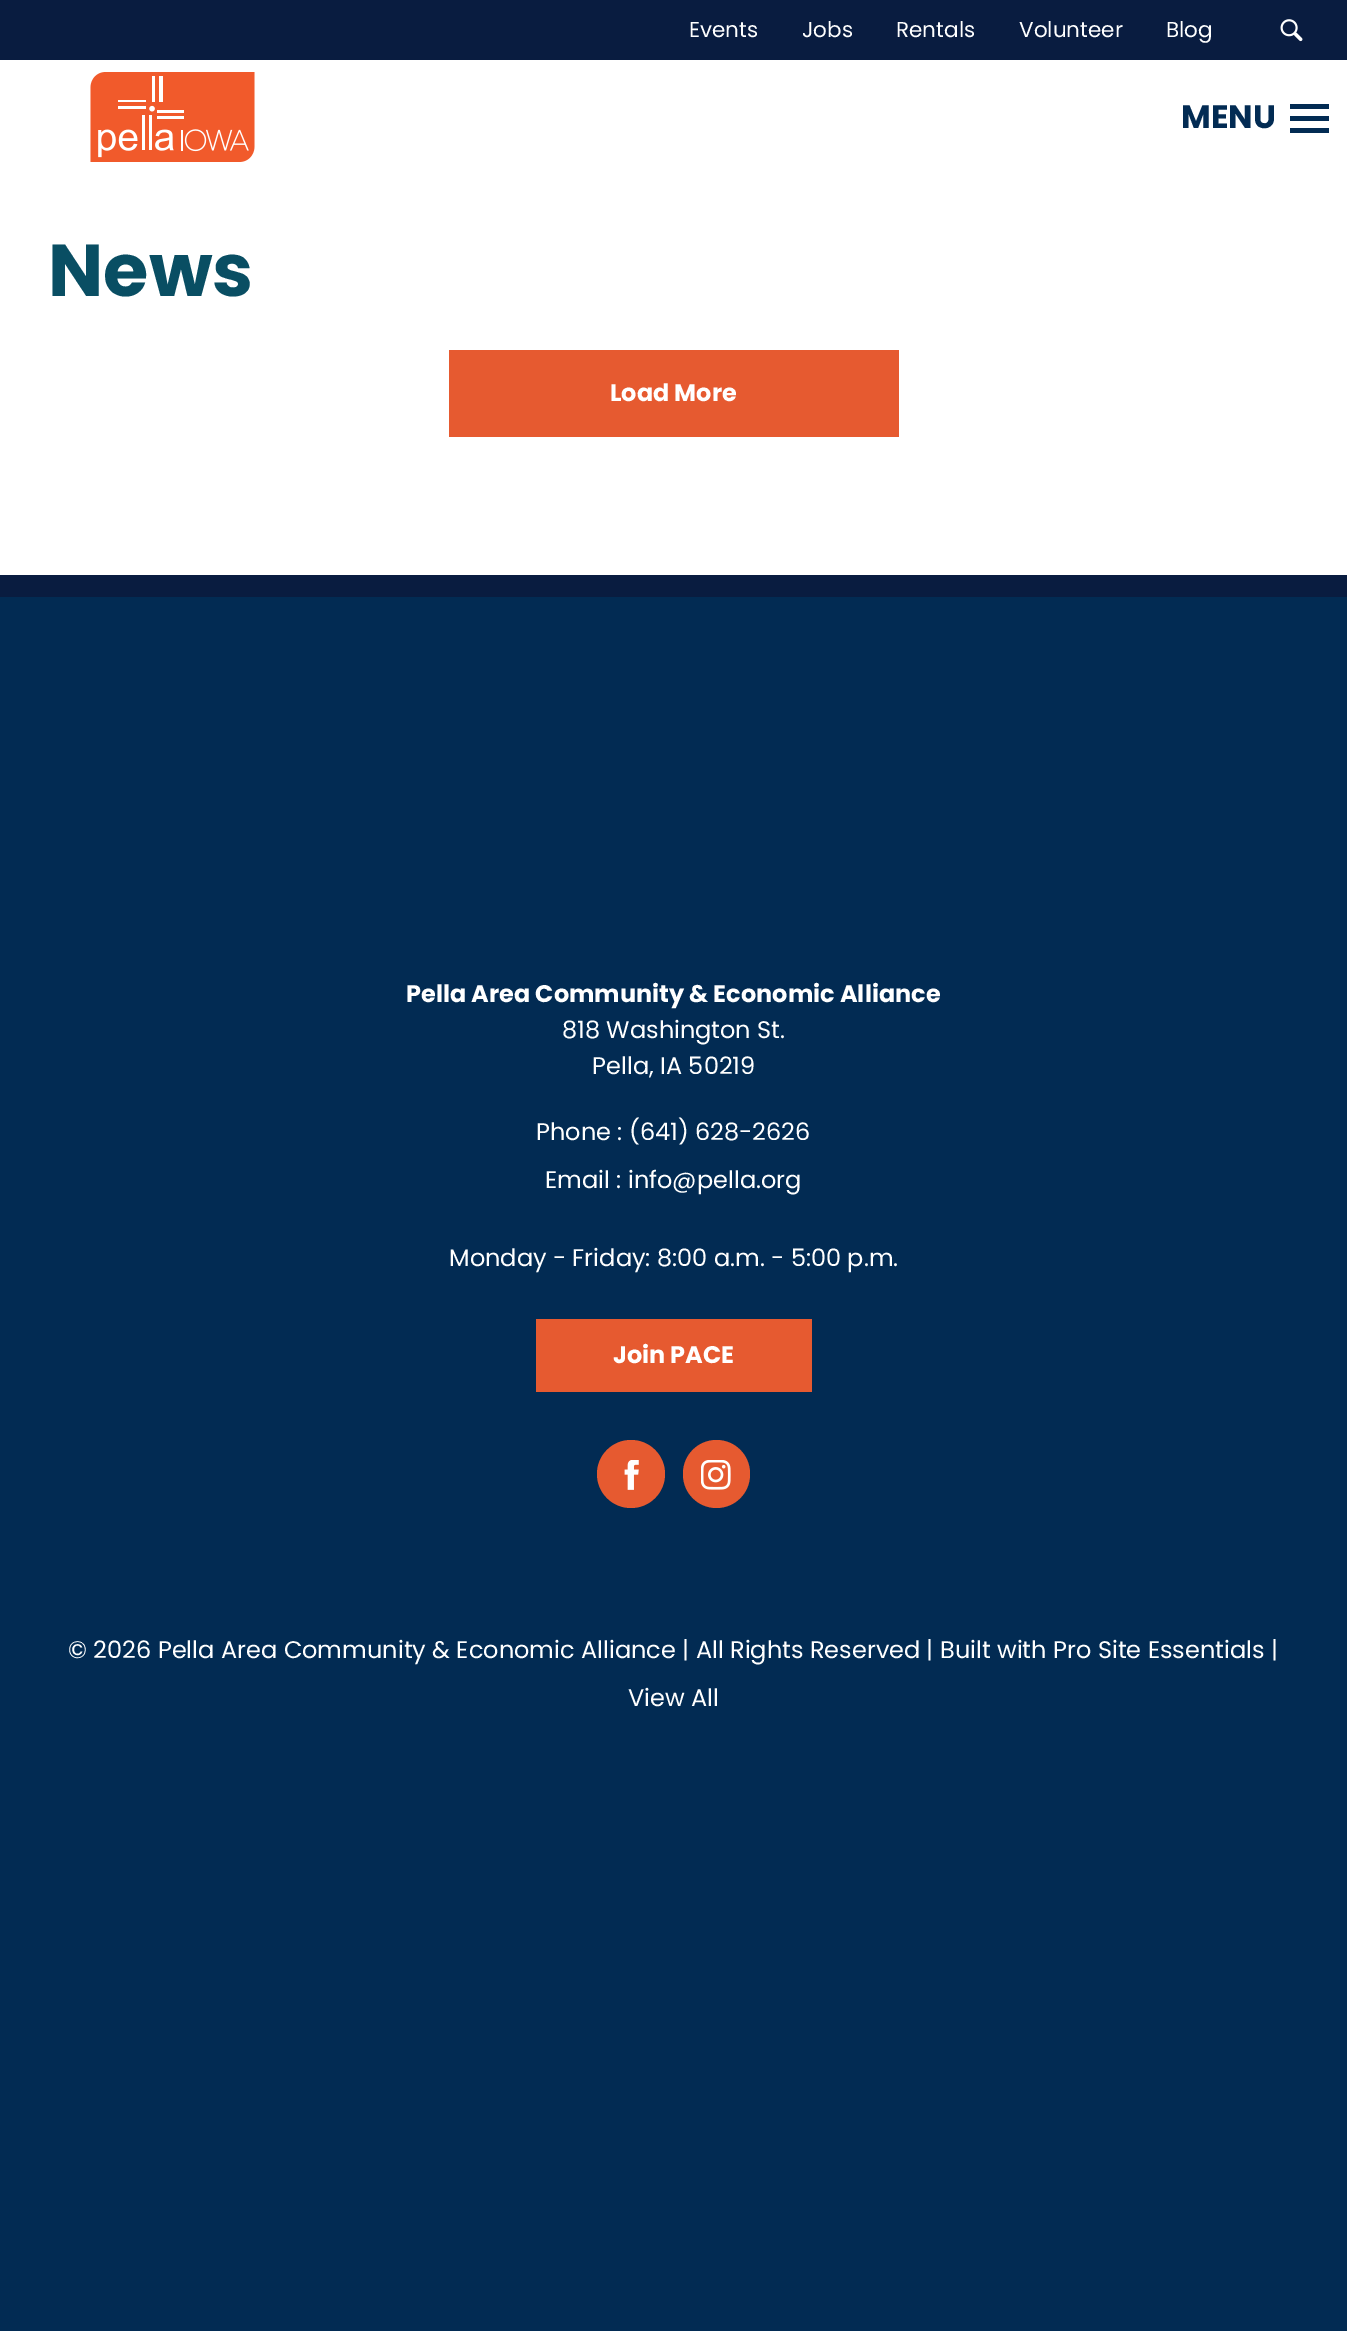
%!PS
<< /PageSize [1347 2331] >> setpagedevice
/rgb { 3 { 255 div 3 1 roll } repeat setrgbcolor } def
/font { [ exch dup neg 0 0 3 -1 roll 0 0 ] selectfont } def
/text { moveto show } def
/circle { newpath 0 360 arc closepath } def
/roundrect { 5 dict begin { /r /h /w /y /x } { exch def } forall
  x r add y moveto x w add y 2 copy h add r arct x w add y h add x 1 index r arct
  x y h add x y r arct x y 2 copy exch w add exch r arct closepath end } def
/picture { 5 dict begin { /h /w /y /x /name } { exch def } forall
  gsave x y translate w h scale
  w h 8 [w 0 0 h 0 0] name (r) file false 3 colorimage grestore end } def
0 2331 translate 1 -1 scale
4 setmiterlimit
255 255 255 rgb
0 0 1347 2331 rectfill
9 28 64 rgb
0 0 1347 60 rectfill
(img_01.rgb) 1280 19 23 23 picture
(img_02.rgb) 90 72 165 90 picture
2 43 83 rgb
1290 104 39 5 rectfill
1290 116 39 5 rectfill
1290 128 39 5 rectfill
230 90 48 rgb
449 350 450 87 rectfill
2 43 83 rgb
0 597 1347 1734 rectfill
9 28 64 rgb
0 575 1347 22 rectfill
230 90 48 rgb
536 1319 276 73 rectfill
631 1474 34 circle fill
(img_03.rgb) 624 1460 15 30 picture
683 1440 67 68 33.5 roundrect fill
(img_04.rgb) 701 1460 30 30 picture
/Poppins-Regular 21.5 font
255 255 255 rgb
(Events) 689 37 text
(Jobs) 802 37 text
(Rentals) 896 37 text
(Volunteer) 1019 37 text
(Blog) 1166 37 text
/Poppins-Bold 32.5 font
2 43 83 rgb
(MENU) 1181 128 text
/Poppins-Bold 73.5 font
9 78 99 rgb
(News) 48 296 text
/Poppins-Bold 24 font
255 255 255 rgb
(Load More) 610 401 text
(Pella Area Community & Economic Alliance) 406 1002 text
/Poppins-Regular 24 font
(818 Washington St.) 562 1038 text
(Pella, IA 50219) 592 1074 text
(Phone : \(641\) 628-2626) 536 1140 text
(Email : info@pella.org) 545 1188 text
(Monday - Friday: 8:00 a.m. - 5:00 p.m.) 449 1266 text
/Poppins-Bold 24 font
(Join PACE) 613 1363 text
/Poppins-Regular 24 font
(© 2026 Pella Area Community & Economic Alliance | All Rights Reserved | Built with Pro Site Essentials |) 68 1658 text
(View All) 628 1706 text
showpage
